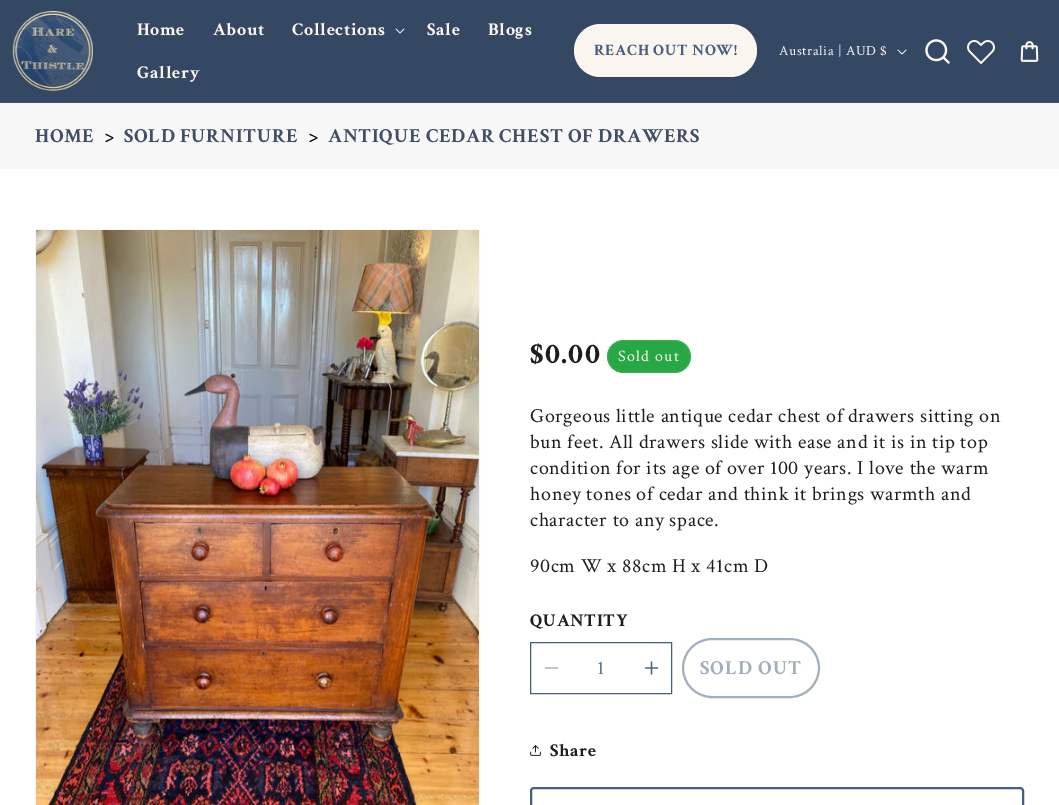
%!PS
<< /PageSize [1059 805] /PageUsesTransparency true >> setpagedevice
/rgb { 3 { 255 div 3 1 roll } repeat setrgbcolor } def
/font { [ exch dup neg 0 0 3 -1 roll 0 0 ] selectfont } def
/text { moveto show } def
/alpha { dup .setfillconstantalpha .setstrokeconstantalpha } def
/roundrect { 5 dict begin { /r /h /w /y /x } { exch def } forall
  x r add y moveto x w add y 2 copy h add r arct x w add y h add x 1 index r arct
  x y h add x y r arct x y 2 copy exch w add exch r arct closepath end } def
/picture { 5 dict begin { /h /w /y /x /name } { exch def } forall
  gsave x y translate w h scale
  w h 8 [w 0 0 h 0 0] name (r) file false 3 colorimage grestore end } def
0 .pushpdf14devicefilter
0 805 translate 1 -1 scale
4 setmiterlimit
255 255 255 rgb
0 0 1059 805 rectfill
53 72 99 rgb
0 0 1059 102 rectfill
69 86 110 rgb
0 102 1059 1 rectfill
(img_01.rgb) 12 11 81 80 picture
(img_02.rgb) 395 28 10 6 picture
250 245 239 rgb
574 24 183 53 26.5 roundrect fill
(img_02.rgb) 897 49 10 6 picture
(img_03.rgb) 925 39 25 25 picture
(img_04.rgb) 967 40 28 24 picture
(img_05.rgb) 1020 41 19 21 picture
247 247 248 rgb
0 103 1059 66 rectfill
246 247 249 rgb
35.5 229.5 444 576 rectstroke
(img_06.rgb) 36 230 443 575 picture
40 167 69 rgb
607 340 84 33 16.5 roundrect fill
0.1 alpha
250 245 239 rgb
607.5 340.5 83 32 16 roundrect stroke
1 alpha
(img_07.rgb) 544 667 15 2 picture
(img_08.rgb) 644 661 15 14 picture
71 94 126 rgb
530.5 642.5 141 51 rectstroke
163 175 191 rgb
2 setlinewidth
683 639 136 58 29 roundrect stroke
(img_09.rgb) 530 745 11 11 picture
71 94 126 rgb
531 788 492 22 3 roundrect stroke
/CrimsonText-Bold 18 font
250 245 239 rgb
137 35 moveto 0.6 0 (Home) ashow
213 35 moveto 0.6 0 (About) ashow
292 35 moveto 0.6 0 (Collections) ashow
427 35 moveto 0.6 0 (Sale) ashow
488 35 moveto 0.6 0 (Blogs) ashow
137 78 moveto 0.6 0 (Gallery) ashow
/CrimsonText-Bold 16 font
71 94 126 rgb
594 55 moveto 0.6 0 (REACH OUT NOW!) ashow
/CrimsonText-Regular 14 font
250 245 239 rgb
779 55 moveto 0.6 0 (Australia | AUD $) ashow
/CrimsonText-Bold 20 font
64 79 100 rgb
35 142 moveto 0.6 0 (HOME) ashow
0 0 0 rgb
105 142 moveto 0.6 0 (>) ashow
64 79 100 rgb
124 142 moveto 0.6 0 (SOLD FURNITURE) ashow
0 0 0 rgb
309 142 moveto 0.6 0 (>) ashow
64 79 100 rgb
328 142 moveto 0.6 0 (ANTIQUE CEDAR CHEST OF DRAWERS) ashow
/CrimsonText-Bold 30 font
30 30 30 rgb
530 363 moveto 1.25 0 ($0.00) ashow
/CrimsonText-Regular 16 font
250 245 239 rgb
618 361 moveto 1.25 0 (Sold out) ashow
/CrimsonText-Regular 20 font
30 30 30 rgb
530 422 moveto 0.6 0 (Gorgeous little antique cedar chest of drawers sitting on) ashow
530 448 moveto 0.6 0 (bun feet. All drawers slide with ease and it is in tip top) ashow
530 474 moveto 0.6 0 (condition for its age of over 100 years. I love the warm) ashow
530 500 moveto 0.6 0 (honey tones of cedar and think it brings warmth and) ashow
530 526 moveto 0.6 0 (character to any space.) ashow
530 572 moveto 0.6 0 (90cm W x 88cm H x 41cm D) ashow
/CrimsonText-Bold 18 font
530 626 moveto 0.6 0 (QUANTITY) ashow
/CrimsonText-Regular 20 font
99 118 145 rgb
(1) 597 674 text
/CrimsonText-Bold 20 font
163 175 191 rgb
700 674 moveto 1 0 (SOLD OUT) ashow
/CrimsonText-Bold 18 font
30 30 30 rgb
550 756 moveto 0.6 0 (Share) ashow
.poppdf14devicefilter showpage
